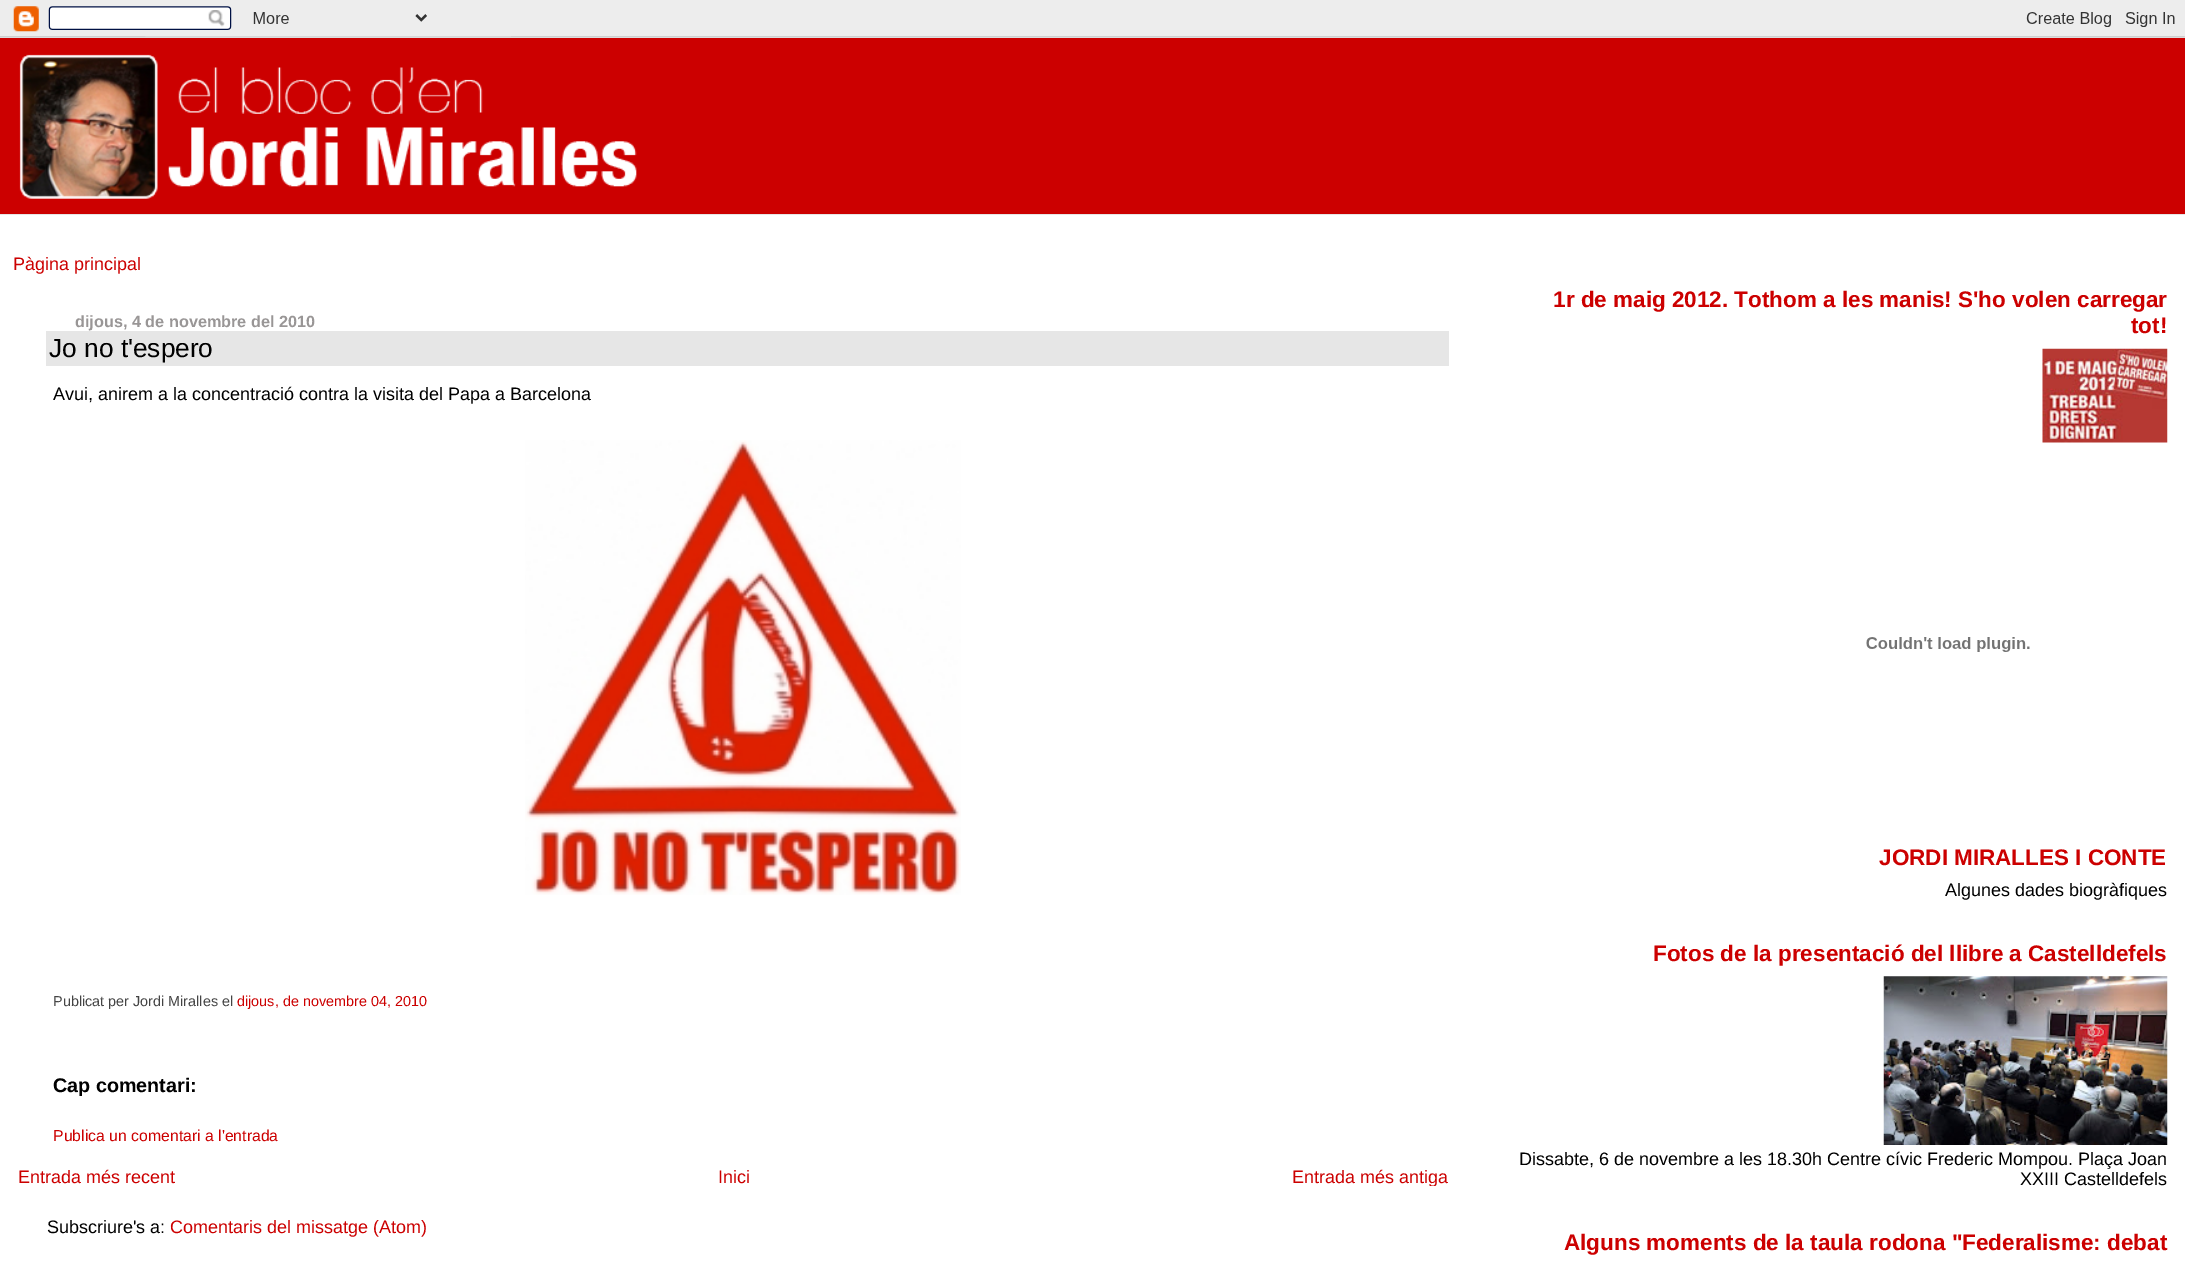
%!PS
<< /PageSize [2185 1265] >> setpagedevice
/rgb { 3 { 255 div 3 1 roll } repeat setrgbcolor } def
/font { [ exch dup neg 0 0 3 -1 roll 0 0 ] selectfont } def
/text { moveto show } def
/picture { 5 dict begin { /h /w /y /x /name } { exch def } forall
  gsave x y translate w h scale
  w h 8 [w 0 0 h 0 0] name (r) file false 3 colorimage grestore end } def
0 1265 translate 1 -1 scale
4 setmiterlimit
255 255 255 rgb
0 0 2185 1265 rectfill
(img_01.rgb) 0 0 2185 38 picture
204 0 0 rgb
0 38 2185 176 rectfill
230 230 230 rgb
0 214 2185 1 rectfill
(img_02.rgb) 19 54 618 145 picture
46 331 1403 35 rectfill
(img_03.rgb) 525 440 436 455 picture
(img_04.rgb) 2042 348 126 95 picture
(img_05.rgb) 1866 637 164 15 picture
(img_06.rgb) 1883 976 285 169 picture
/LiberationSans-Regular 18 font
204 0 0 rgb
(Pàgina principal) 13 270 text
/LiberationSans-Bold 16.25 font
153 150 150 rgb
(dijous, 4 de novembre del 2010) 75 327 text
/LiberationSans-Regular 26.25 font
0 0 0 rgb
(Jo no t'espero) 49 357 text
/LiberationSans-Regular 18 font
(Avui, anirem a la concentració contra la visita del Papa a Barcelona) 53 400 text
/LiberationSans-Regular 14.4 font
68 68 68 rgb
(Publicat per Jordi Miralles el) 53 1006 text
204 0 0 rgb
(dijous, de novembre 04, 2010) 237 1006 text
/LiberationSans-Bold 19.75 font
0 0 0 rgb
(Cap comentari:) 53 1092 text
/LiberationSans-Regular 15.8 font
204 0 0 rgb
(Publica un comentari a l'entrada) 53 1141 text
/LiberationSans-Regular 18 font
(Entrada més recent) 18 1183 text
(Inici) 718 1183 text
gsave
18 1166 1431 20 rectclip
(Entrada més antiga) 1292 1183 text
grestore
0 0 0 rgb
(Subscriure's a:) 47 1233 text
204 0 0 rgb
(Comentaris del missatge \(Atom\)) 170 1233 text
/LiberationSans-Bold 22.5 font
(1r de maig 2012. Tothom a les manis! S'ho volen carregar) 1553 307 text
(tot!) 2131 333 text
(JORDI MIRALLES I CONTE) 1879 865 text
/LiberationSans-Regular 18 font
0 0 0 rgb
(Algunes dades biogràfiques) 1945 896 text
/LiberationSans-Bold 22.5 font
204 0 0 rgb
(Fotos de la presentació del llibre a Castelldefels) 1653 961 text
/LiberationSans-Regular 18 font
0 0 0 rgb
(Dissabte, 6 de novembre a les 18.30h Centre cívic Frederic Mompou. Plaça Joan) 1519 1165 text
(XXIII Castelldefels) 2020 1185 text
/LiberationSans-Bold 22.5 font
204 0 0 rgb
(Alguns moments de la taula rodona "Federalisme: debat) 1564 1250 text
showpage
